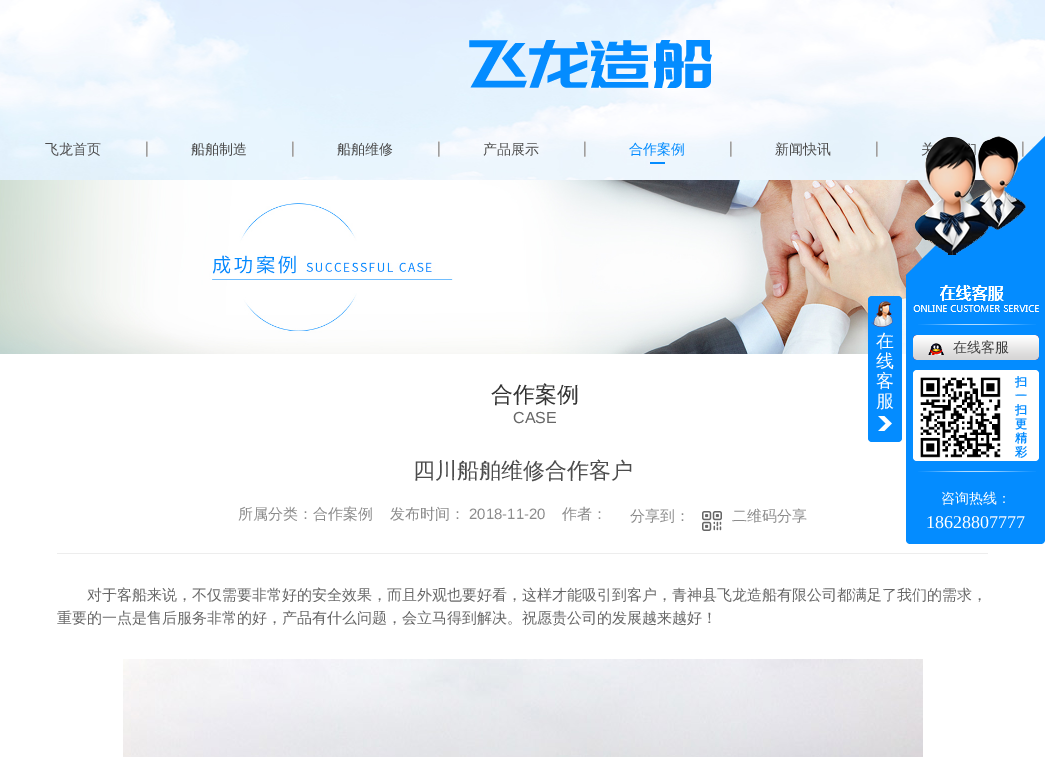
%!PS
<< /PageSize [1045 757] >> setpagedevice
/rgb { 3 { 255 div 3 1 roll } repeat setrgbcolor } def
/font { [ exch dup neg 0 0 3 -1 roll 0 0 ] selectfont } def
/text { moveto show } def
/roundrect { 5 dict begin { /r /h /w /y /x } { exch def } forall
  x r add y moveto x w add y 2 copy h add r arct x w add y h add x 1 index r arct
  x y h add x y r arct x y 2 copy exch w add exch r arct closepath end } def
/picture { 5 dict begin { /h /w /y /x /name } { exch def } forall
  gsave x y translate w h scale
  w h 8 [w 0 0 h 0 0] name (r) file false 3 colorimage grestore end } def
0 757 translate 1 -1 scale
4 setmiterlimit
255 255 255 rgb
0 0 1045 757 rectfill
(img_01.rgb) 0 0 1045 180 picture
(img_02.rgb) 469 40 243 48 picture
(img_03.rgb) 146 141 2 16 picture
(img_03.rgb) 292 141 2 16 picture
(img_03.rgb) 438 141 2 16 picture
(img_03.rgb) 584 141 2 16 picture
4 140 255 rgb
650 162 15 2 rectfill
(img_03.rgb) 730 141 2 16 picture
(img_03.rgb) 876 141 2 16 picture
(img_03.rgb) 1022 141 2 16 picture
(img_04.rgb) 0 180 991 174 picture
868 296 34 146 4 roundrect fill
(img_05.rgb) 878 416 14 15 picture
(img_06.rgb) 871 301 22 26 picture
906 275 moveto 139 0 rlineto 0 265 rlineto 0 2 -2 4 -4 4 rcurveto -131 0 rlineto -2 0 -4 -2 -4 -4 rcurveto closepath fill
(img_08.rgb) 913 285 126 27 picture
(img_09.rgb) 918 324 118 1 picture
(img_10.rgb) 913 335 126 25 picture
(img_11.rgb) 928 343 16 12 picture
255 255 255 rgb
913 370 126 91 4 roundrect fill
(img_12.rgb) 920 377 81 81 picture
(img_09.rgb) 918 471 118 1 picture
(img_13.rgb) 702 511 20 20 picture
237 237 237 rgb
57 553 931 1 rectfill
(img_14.rgb) 123 659 800 98 picture
/WenQuanYiZenHei-Medium 14 font
76 76 76 rgb
(飞龙首页) 45 154 text
(船舶制造) 191 154 text
(船舶维修) 337 154 text
(产品展示) 483 154 text
4 140 255 rgb
(合作案例) 629 154 text
76 76 76 rgb
(新闻快讯) 775 154 text
(关) 921 154 text
/WenQuanYiZenHei-Medium 18 font
255 255 255 rgb
(在) 876 347 text
(线) 876 367 text
(客) 876 387 text
(服) 876 407 text
4 140 255 rgb
1045 136 moveto -139 139 rlineto 139 0 rlineto closepath fill
(img_07.rgb) 914 136 112 119 picture
/WenQuanYiZenHei-Medium 14 font
64 64 64 rgb
(在线客服) 953 352 text
/WenQuanYiZenHei-Bold 12 font
4 140 255 rgb
(扫) 1015 386 text
(一) 1015 400 text
(扫) 1015 414 text
(更) 1015 428 text
(精) 1015 442 text
(彩) 1015 456 text
/WenQuanYiZenHei-Medium 14 font
255 255 255 rgb
(咨询热线：) 941 503 text
/LiberationSerif-Regular 18 font
(18628807777) 926 528 text
/WenQuanYiZenHei-Medium 22 font
51 51 51 rgb
(合作案例) 491 402 text
/LiberationSans-Regular 16 font
102 102 102 rgb
(CASE) 513 423 text
/WenQuanYiZenHei-Medium 22 font
76 76 76 rgb
(四川船舶维修合作客户) 413 478 text
/WenQuanYiZenHei-Medium 15 font
140 140 140 rgb
(所属分类：合作案例) 238 519 text
(发布时间：) 390 519 text
/LiberationSans-Regular 15 font
(2018-11-20) 469 519 text
/WenQuanYiZenHei-Medium 15 font
(作者：) 562 519 text
(分享到：) 630 521 text
(二维码分享) 732 521 text
102 102 102 rgb
(对于客船来说，不仅需要非常好的安全效果，而且外观也要好看，这样才能吸引到客户，青神县飞龙造船有限公司都满足了我们的需求，) 87 600 text
(重要的一点是售后服务非常的好，产品有什么问题，会立马得到解决。祝愿贵公司的发展越来越好！) 57 623 text
showpage
